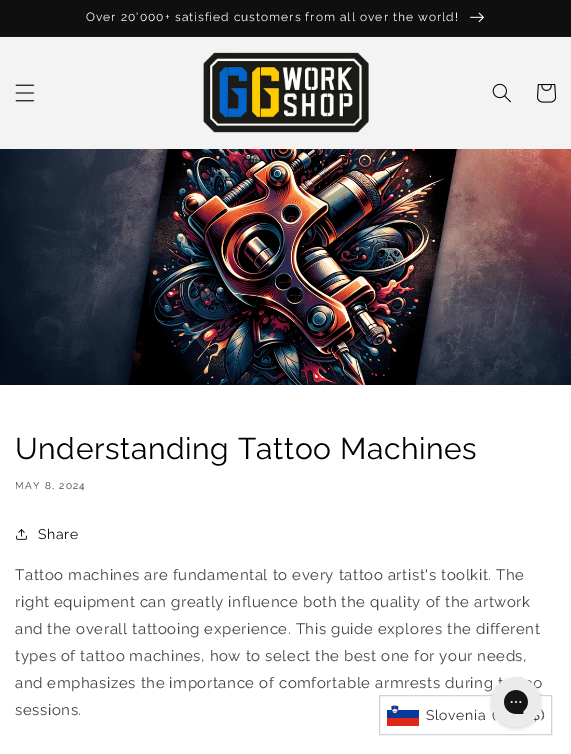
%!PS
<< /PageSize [571 754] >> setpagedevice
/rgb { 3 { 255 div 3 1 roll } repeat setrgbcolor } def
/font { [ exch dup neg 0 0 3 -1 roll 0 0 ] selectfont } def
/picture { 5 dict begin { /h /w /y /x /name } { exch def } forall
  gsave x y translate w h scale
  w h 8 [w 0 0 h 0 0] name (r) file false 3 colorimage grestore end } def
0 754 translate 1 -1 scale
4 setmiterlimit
255 255 255 rgb
0 0 571 754 rectfill
20 20 20 rgb
0 36 571 1 rectfill
15 15 15 rgb
0 0 571 36 rectfill
(img_01.rgb) 470 12 14 10 picture
243 243 243 rgb
0 37 571 112 rectfill
(img_02.rgb) 15 84 20 18 picture
(img_03.rgb) 203 52 166 81 picture
(img_04.rgb) 492 83 19 20 picture
(img_05.rgb) 537 84 20 19 picture
(img_06.rgb) 0 149 571 236 picture
(img_07.rgb) 16 529 11 11 picture
210 211 211 rgb
379.5 695.5 172 39 rectstroke
(img_09.rgb) 387 705 32 21 picture
/Raleway-Regular 12 font
255 255 255 rgb
86 21 moveto 1 0 (Over 20'000+ satisfied customers from all over the world!) ashow
/Raleway-Regular 30 font
0 0 0 rgb
15 459 moveto 0.6 0 (Understanding Tattoo Machines) ashow
/Raleway-Regular 10 font
64 64 64 rgb
15 489 moveto 1.25 0 (MAY 8, 2024) ashow
/Raleway-Regular 14 font
18 18 18 rgb
38 539 moveto 0.6 0 (Share) ashow
/Raleway-Regular 15 font
64 64 64 rgb
15 580 moveto 0.6 0 (Tattoo machines are fundamental to every tattoo artist's toolkit. The) ashow
15 607 moveto 0.6 0 (right equipment can greatly influence both the quality of the artwork) ashow
15 634 moveto 0.6 0 (and the overall tattooing experience. This guide explores the different) ashow
15 661 moveto 0.6 0 (types of tattoo machines, how to select the best one for your needs,) ashow
15 688 moveto 0.6 0 (and emphasizes the importance of comfortable armrests during) ashow
15 715 moveto 0.6 0 (sessions.) ashow
/Raleway-Regular 14 font
51 51 51 rgb
426 720 moveto 0.6 0 (Slovenia) ashow
492 720 moveto 0.6 0 (\() ashow
541 720 moveto 0.6 0 (\)) ashow
(img_08.rgb) 489 677 54 54 picture
showpage
